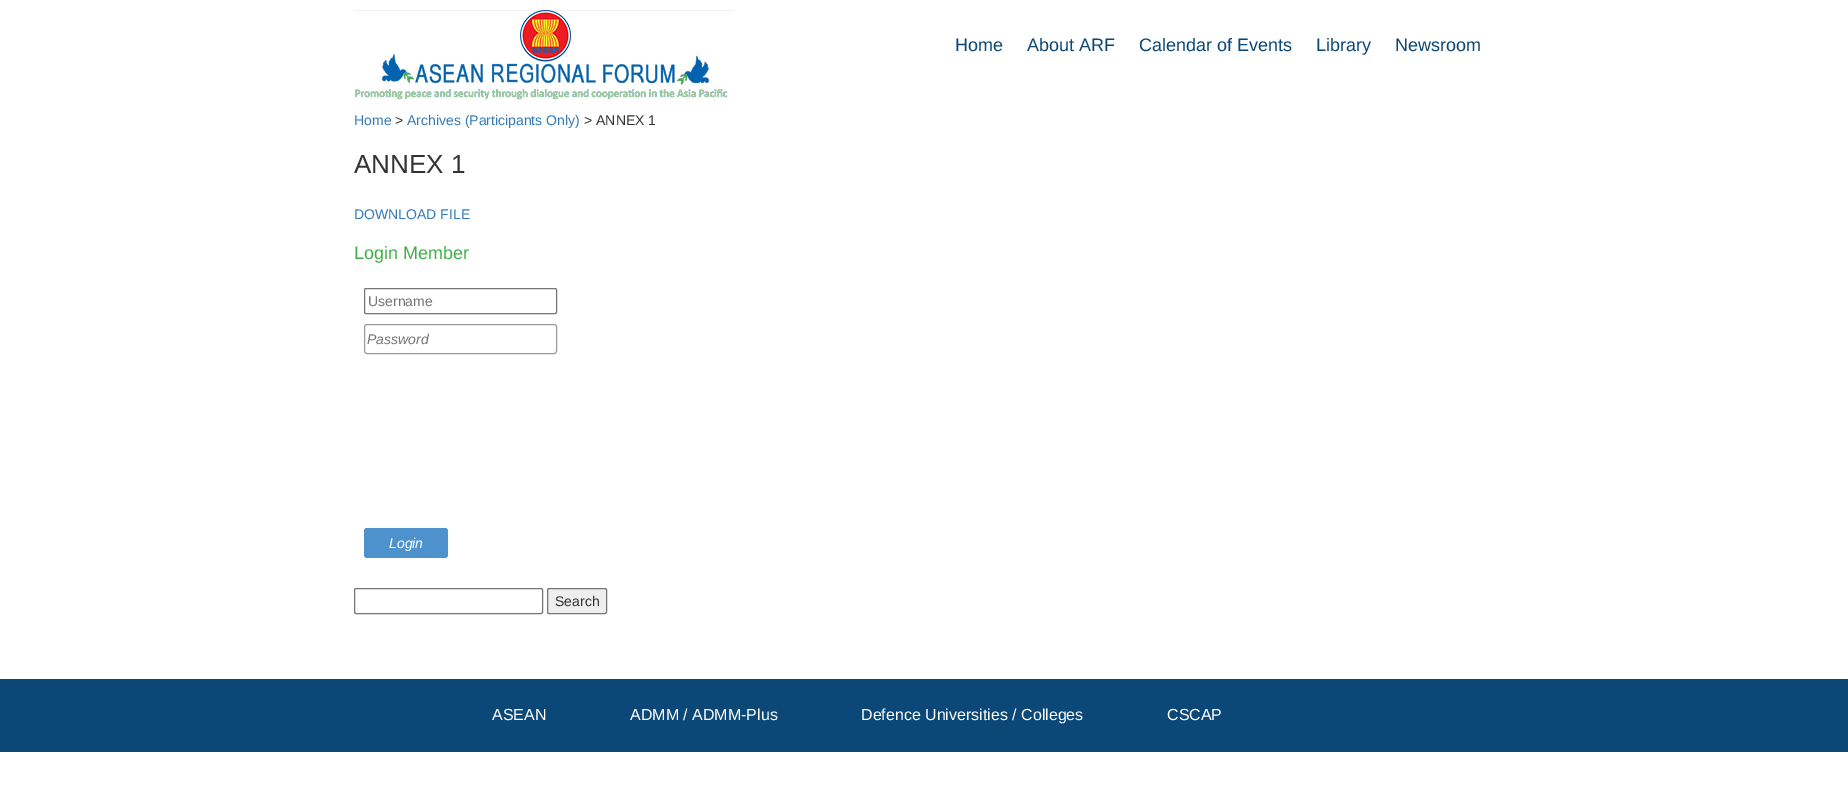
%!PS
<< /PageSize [1848 800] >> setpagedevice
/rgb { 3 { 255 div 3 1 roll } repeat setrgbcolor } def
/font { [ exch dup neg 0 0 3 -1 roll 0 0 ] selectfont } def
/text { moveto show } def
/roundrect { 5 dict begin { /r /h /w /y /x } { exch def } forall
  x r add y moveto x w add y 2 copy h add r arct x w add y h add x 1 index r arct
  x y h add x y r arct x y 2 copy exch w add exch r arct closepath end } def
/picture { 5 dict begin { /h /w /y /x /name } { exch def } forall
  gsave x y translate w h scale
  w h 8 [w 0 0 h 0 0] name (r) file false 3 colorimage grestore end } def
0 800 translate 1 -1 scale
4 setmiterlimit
255 255 255 rgb
0 0 1848 800 rectfill
(img_01.rgb) 354 10 380 90 picture
118 118 118 rgb
364.5 288.5 192 25 1.5 roundrect stroke
155 155 155 rgb
364.5 324.5 192 29 2.5 roundrect stroke
77 146 205 rgb
364 528 84 30 3 roundrect fill
118 118 118 rgb
354.5 588.5 188 25 1.5 roundrect stroke
239 239 239 rgb
547.5 588.5 59 25 1.5 roundrect gsave fill grestore
118 118 118 rgb
stroke
11 71 119 rgb
0 679 1848 73 rectfill
/LiberationSans-Regular 18 font
(Home) 955 51 text
(About ARF) 1027 51 text
(Calendar of Events) 1139 51 text
(Library) 1316 51 text
(Newsroom) 1395 51 text
/LiberationSans-Regular 14 font
51 122 183 rgb
(Home) 354 125 text
51 51 51 rgb
(>) 395 125 text
51 122 183 rgb
(Archives \(Participants Only\)) 407 125 text
51 51 51 rgb
(> ANNEX 1) 584 125 text
/LiberationSans-Regular 26 font
(ANNEX 1) 354 173 text
/LiberationSans-Regular 14 font
51 122 183 rgb
(DOWNLOAD FILE) 354 219 text
/LiberationSans-Regular 18 font
64 175 73 rgb
(Login Member) 354 259 text
/LiberationSans-Regular 14 font
117 117 117 rgb
(Username) 368 306 text
/LiberationSans-Italic 14 font
(Password) 367 344 text
255 255 255 rgb
(Login) 389 548 text
/LiberationSans-Regular 14 font
51 51 51 rgb
(Search) 555 606 text
/LiberationSans-Regular 16 font
255 255 255 rgb
(ASEAN) 492 720 text
(ADMM / ADMM-Plus) 630 720 text
(Defence Universities / Colleges) 861 720 text
(CSCAP) 1167 720 text
showpage
